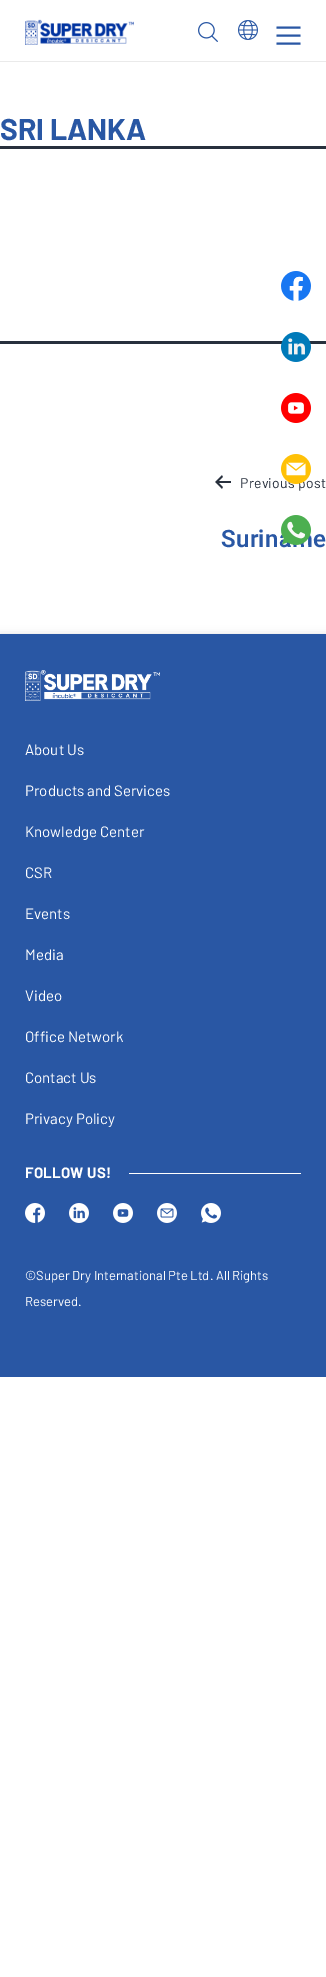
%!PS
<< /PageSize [326 1977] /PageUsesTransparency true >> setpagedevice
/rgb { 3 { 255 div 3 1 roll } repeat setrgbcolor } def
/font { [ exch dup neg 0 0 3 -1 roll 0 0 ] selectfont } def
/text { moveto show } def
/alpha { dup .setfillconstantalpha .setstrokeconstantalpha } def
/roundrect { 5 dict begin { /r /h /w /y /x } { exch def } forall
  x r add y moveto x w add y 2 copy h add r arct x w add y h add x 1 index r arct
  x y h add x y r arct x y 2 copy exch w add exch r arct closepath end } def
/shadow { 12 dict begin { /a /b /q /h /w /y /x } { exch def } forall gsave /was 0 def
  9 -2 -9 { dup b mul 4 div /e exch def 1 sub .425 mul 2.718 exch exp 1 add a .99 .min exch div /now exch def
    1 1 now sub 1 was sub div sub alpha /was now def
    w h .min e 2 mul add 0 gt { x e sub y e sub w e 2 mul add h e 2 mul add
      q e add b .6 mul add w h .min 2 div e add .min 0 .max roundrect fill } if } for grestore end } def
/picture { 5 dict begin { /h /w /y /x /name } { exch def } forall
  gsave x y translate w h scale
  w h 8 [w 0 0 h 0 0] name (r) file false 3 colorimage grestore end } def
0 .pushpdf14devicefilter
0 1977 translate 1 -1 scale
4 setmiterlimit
255 255 255 rgb
0 0 326 1977 rectfill
(img_01.rgb) 25 19 109 26 picture
(img_02.rgb) 198 22 20 20 picture
(img_03.rgb) 238 20 20 20 picture
41 87 164 rgb
2 setlinewidth
2 setlinecap
277.5 27.5 moveto 22 0 rlineto 277.5 35.5 moveto 22 0 rlineto 277.5 43.5 moveto 22 0 rlineto stroke
234 234 234 rgb
0 61 326 1 rectfill
40 48 61 rgb
0 146 326 3 rectfill
0 341 326 3 rectfill
(img_04.rgb) 215 475 16 14 picture
(img_05.rgb) 281 271 30 30 picture
(img_06.rgb) 281 332 30 30 picture
(img_07.rgb) 281 393 30 30 picture
gsave
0 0 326 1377 rectclip
200 200 200 rgb
0 634 326 743 0 4 0.5 shadow
grestore
41 87 164 rgb
0 634 326 743 rectfill
(img_10.rgb) 25 670 135 31 picture
255 255 255 rgb
129 1173 172 1 rectfill
(img_11.rgb) 25 1203 20 20 picture
(img_12.rgb) 69 1203 20 20 picture
(img_13.rgb) 113 1203 20 20 picture
(img_14.rgb) 157 1203 20 20 picture
(img_15.rgb) 201 1203 20 20 picture
/Barlow-Bold 30 font
41 87 164 rgb
(SRI LANKA) 0 140 text
/Barlow-Regular 14 font
40 48 61 rgb
240 488 moveto 0.25 0 (Previous post) ashow
/Roboto-SemiBold 24 font
41 87 164 rgb
221 547 moveto 0.25 0 (Suriname) ashow
(img_08.rgb) 281 454 30 30 picture
(img_09.rgb) 281 515 30 30 picture
/Barlow-Regular 15 font
255 255 255 rgb
(About Us) 25 755 text
(Products and Services) 25 796 text
(Knowledge Center) 25 837 text
(CSR) 25 878 text
(Events) 25 919 text
(Media) 25 960 text
(Video) 25 1001 text
(Office Network) 25 1042 text
(Contact Us) 25 1083 text
(Privacy Policy) 25 1124 text
/Barlow-Bold 15 font
25 1178 moveto 0.25 0 (FOLLOW US!) ashow
/Barlow-Regular 13 font
(©Super Dry International Pte Ltd. All Rights) 25 1280 text
(Reserved.) 25 1306 text
.poppdf14devicefilter showpage
